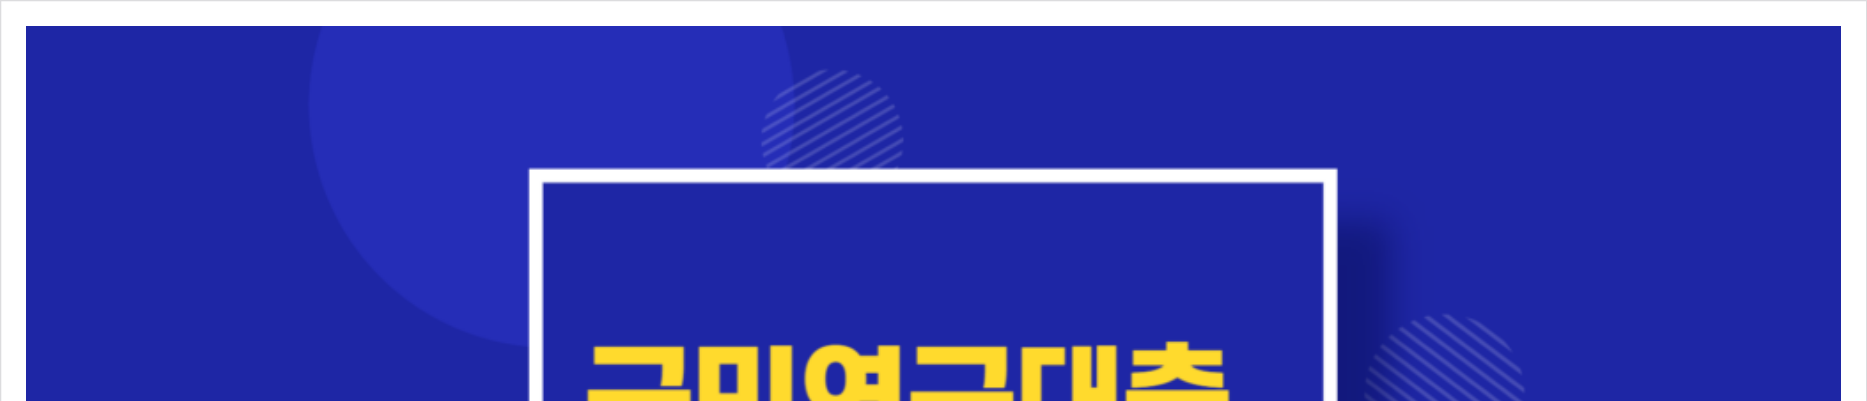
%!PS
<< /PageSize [1867 401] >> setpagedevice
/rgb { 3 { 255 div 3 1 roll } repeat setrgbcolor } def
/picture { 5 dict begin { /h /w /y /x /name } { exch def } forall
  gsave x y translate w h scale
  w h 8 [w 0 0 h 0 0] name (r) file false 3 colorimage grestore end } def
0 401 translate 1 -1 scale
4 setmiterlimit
255 255 255 rgb
0 0 1867 401 rectfill
220 220 222 rgb
0.5 0.5 1866 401 rectstroke
(img_01.rgb) 26 26 1815 375 picture
showpage
